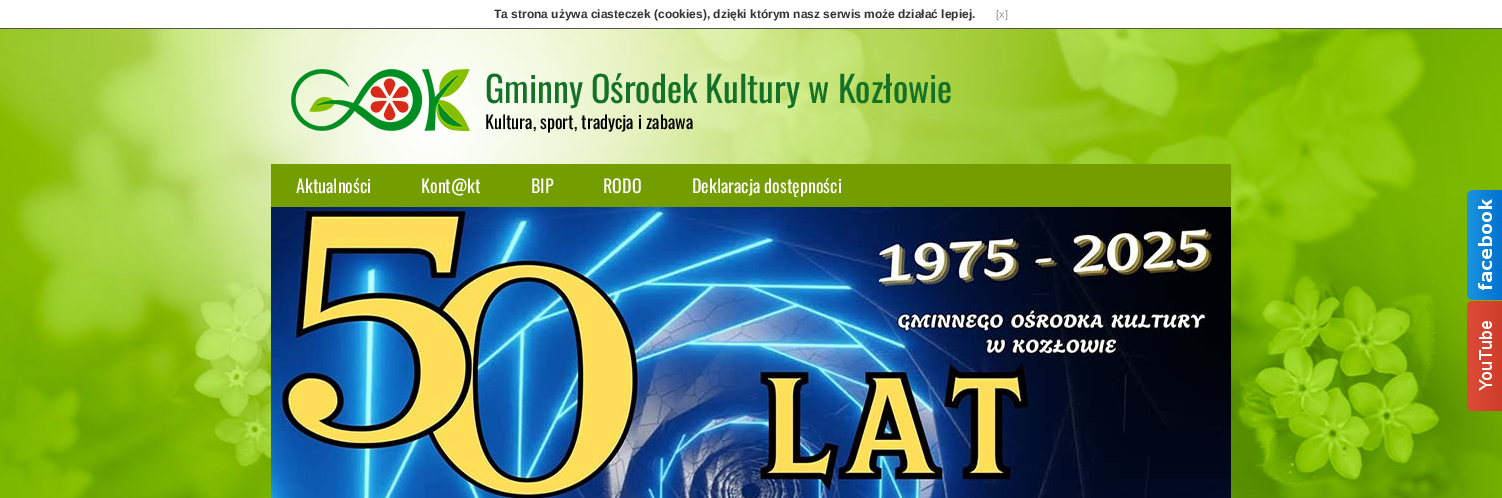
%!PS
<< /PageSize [1502 498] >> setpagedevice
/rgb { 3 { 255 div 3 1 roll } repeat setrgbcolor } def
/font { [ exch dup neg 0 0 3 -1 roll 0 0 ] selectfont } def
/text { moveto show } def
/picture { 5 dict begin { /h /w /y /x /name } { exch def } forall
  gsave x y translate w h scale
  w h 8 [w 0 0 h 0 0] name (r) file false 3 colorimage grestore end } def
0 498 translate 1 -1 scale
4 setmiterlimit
255 255 255 rgb
0 0 1502 498 rectfill
85 85 85 rgb
0 28 1502 1 rectfill
(img_01.rgb) 0 29 1502 469 picture
(img_02.rgb) 291 69 179 62 picture
116 157 0 rgb
271 164 960 43 rectfill
(img_03.rgb) 271 207 960 291 picture
(img_04.rgb) 1467 190 35 110 picture
(img_05.rgb) 1467 301 35 110 picture
/LiberationSans-Bold 12 font
51 51 51 rgb
(Ta strona używa ciasteczek \(cookies\), dzięki którym nasz serwis może działać lepiej.) 494 18 text
/LiberationSans-Regular 11 font
153 153 153 rgb
([x]) 996 18 text
/Oswald-Regular 36 font
20 114 40 rgb
(Gminny Ośrodek Kultury w Kozłowie) 485 103 text
/Oswald-Regular 18 font
0 0 0 rgb
(Kultura, sport, tradycja i zabawa) 485 129 text
255 255 255 rgb
(Aktualności) 296 193 text
(Kont@kt) 421 193 text
(BIP) 531 193 text
(RODO) 603 193 text
(Deklaracja dostępności) 692 193 text
showpage
